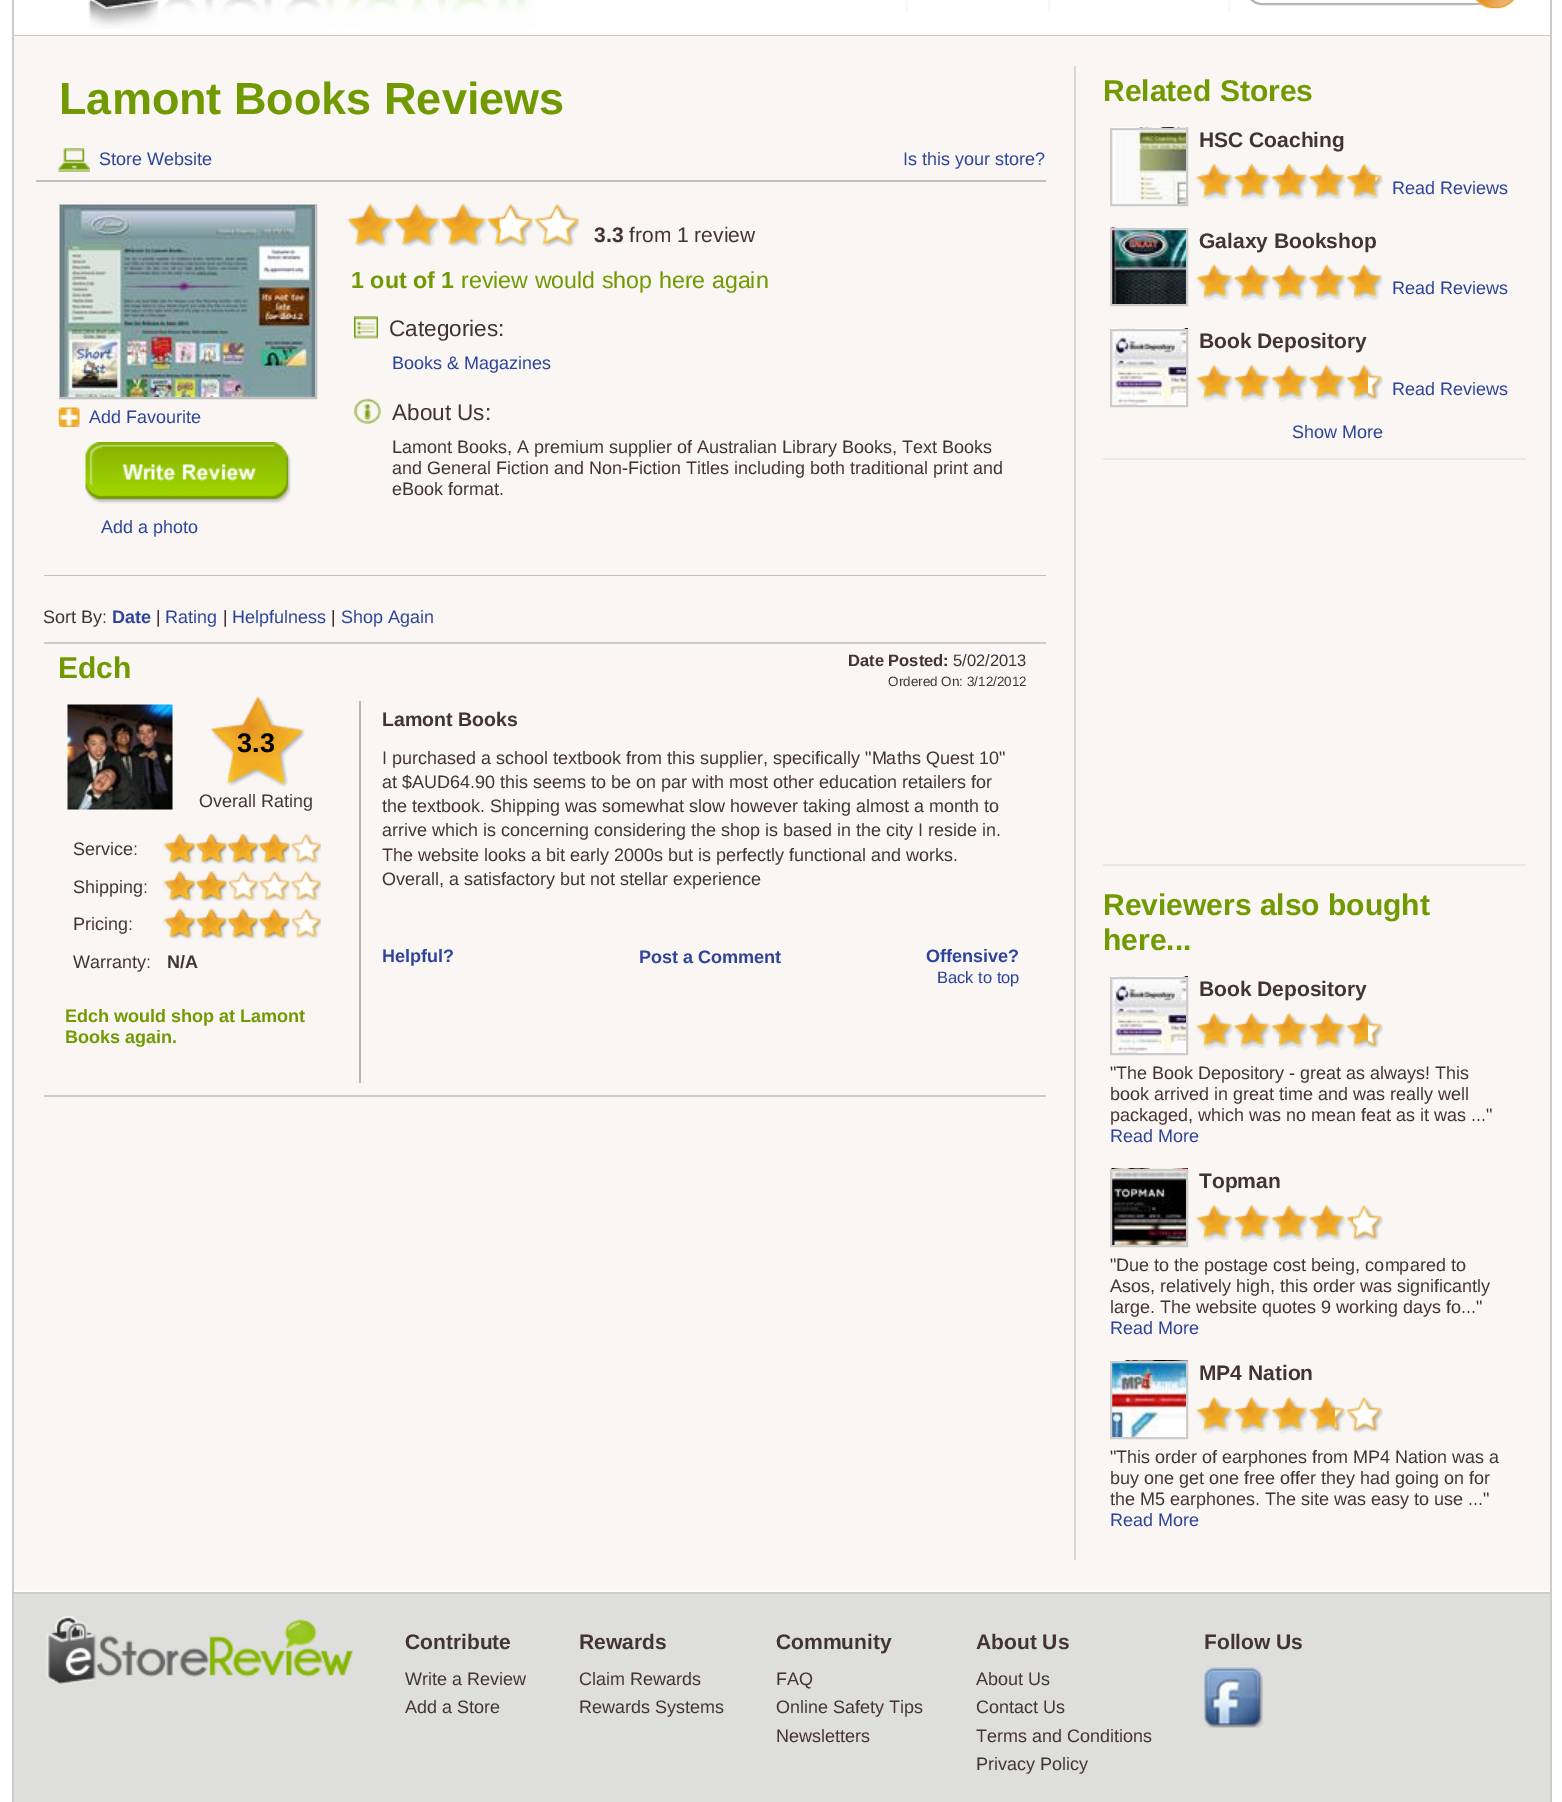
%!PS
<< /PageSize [1562 1802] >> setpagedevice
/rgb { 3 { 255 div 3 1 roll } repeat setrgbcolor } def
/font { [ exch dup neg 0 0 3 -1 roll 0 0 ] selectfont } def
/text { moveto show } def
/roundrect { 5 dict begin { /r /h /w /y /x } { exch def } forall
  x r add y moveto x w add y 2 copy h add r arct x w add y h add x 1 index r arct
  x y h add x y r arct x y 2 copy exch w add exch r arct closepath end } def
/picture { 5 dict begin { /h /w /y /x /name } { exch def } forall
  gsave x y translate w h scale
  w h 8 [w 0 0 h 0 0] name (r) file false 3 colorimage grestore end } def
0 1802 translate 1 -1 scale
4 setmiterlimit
255 255 255 rgb
0 0 1562 1802 rectfill
204 204 204 rgb
1550 0 2 1802 rectfill
12 0 2 1802 rectfill
14 35 1536 1 rectfill
(img_01.rgb) 88 0 448 29 picture
(img_02.rgb) 906 0 2 13 picture
(img_03.rgb) 1048 0 2 13 picture
(img_03.rgb) 1228 0 2 13 picture
182 182 182 rgb
2 setlinewidth
1246 -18 268 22 16 roundrect stroke
(img_04.rgb) 1475 0 39 9 picture
249 246 244 rgb
14 36 1536 1554 rectfill
192 192 192 rgb
36 180 1010 2 rectfill
(img_05.rgb) 58 148 32 24 picture
60 205 256 193 rectstroke
(img_06.rgb) 60 205 255 192 picture
(img_07.rgb) 58 407 22 20 picture
(img_08.rgb) 85 442 206 62 picture
(img_09.rgb) 346 203 233 44 picture
(img_10.rgb) 347 203 153 44 picture
(img_11.rgb) 354 316 24 23 picture
(img_12.rgb) 354 398 27 26 picture
44 575 1002 1 rectfill
204 204 204 rgb
44 1095 1002 2 rectfill
44 642 1002 2 rectfill
(img_13.rgb) 67 704 106 106 picture
(img_14.rgb) 211 696 94 91 picture
(img_15.rgb) 163 833 158 31 picture
(img_16.rgb) 163 833 127 31 picture
(img_17.rgb) 163 871 158 30 picture
(img_18.rgb) 163 871 64 30 picture
(img_19.rgb) 163 908 158 31 picture
(img_20.rgb) 163 908 127 31 picture
183 182 180 rgb
359 701 2 382 rectfill
216 216 216 rgb
1074 66 2 1494 rectfill
(img_21.rgb) 1110 127 78 77 picture
204 204 204 rgb
1111 129 76 76 rectstroke
(img_22.rgb) 1195 164 188 37 picture
(img_23.rgb) 1196 164 180 35 picture
(img_24.rgb) 1110 227 78 77 picture
1111 229 76 76 rectstroke
(img_25.rgb) 1195 264 188 37 picture
(img_26.rgb) 1196 264 186 35 picture
(img_27.rgb) 1110 328 78 77 picture
1111 330 76 76 rectstroke
(img_28.rgb) 1195 365 188 37 picture
(img_29.rgb) 1196 365 172 35 picture
232 232 232 rgb
1103 458 423 2 rectfill
1103 864 423 2 rectfill
(img_27.rgb) 1110 976 78 77 picture
204 204 204 rgb
1111 978 76 76 rectstroke
(img_30.rgb) 1195 1013 188 37 picture
(img_31.rgb) 1196 1013 172 35 picture
(img_32.rgb) 1110 1168 78 77 picture
1111 1170 76 76 rectstroke
(img_33.rgb) 1195 1205 188 37 picture
(img_34.rgb) 1196 1205 157 35 picture
(img_35.rgb) 1110 1360 78 77 picture
1111 1362 76 76 rectstroke
(img_36.rgb) 1195 1397 188 37 picture
(img_37.rgb) 1196 1397 139 35 picture
222 222 221 rgb
14 1594 1536 208 rectfill
204 204 204 rgb
14 1592 1536 2 rectfill
(img_38.rgb) 46 1616 307 70 picture
(img_39.rgb) 1204 1667 59 61 picture
/LiberationSans-Bold 45 font
112 153 2 rgb
(Lamont Books Reviews) 59 114 text
/LiberationSans-Regular 18 font
45 68 154 rgb
(Store Website) 99 165 text
(Is this your store?) 903 165 text
(Add Favourite) 89 423 text
(Add a photo) 101 533 text
/LiberationSans-Bold 21 font
68 51 51 rgb
(3.3) 594 242 text
/LiberationSans-Regular 21 font
(from 1 review) 629 242 text
/LiberationSans-Bold 23.25 font
112 153 2 rgb
(1 out of 1) 351 288 text
/LiberationSans-Regular 23.25 font
(review would shop here again) 461 288 text
/LiberationSans-Regular 22.5 font
68 51 51 rgb
(Categories:) 389 336 text
/LiberationSans-Regular 18 font
45 68 154 rgb
(Books & Magazines) 392 369 text
/LiberationSans-Regular 22.5 font
68 51 51 rgb
(About Us:) 392 420 text
/LiberationSans-Regular 18 font
(Lamont Books, A premium supplier of Australian Library Books, Text Books) 392 453 text
(and General Fiction and Non-Fiction Titles including both traditional print and) 392 474 text
(eBook format.) 392 495 text
(Sort By:) 43 623 text
/LiberationSans-Bold 18 font
45 68 154 rgb
(Date) 112 623 text
/LiberationSans-Regular 18 font
68 51 51 rgb
(|) 156 623 text
45 68 154 rgb
(Rating) 165 623 text
68 51 51 rgb
(|) 223 623 text
45 68 154 rgb
(Helpfulness) 232 623 text
68 51 51 rgb
(|) 331 623 text
45 68 154 rgb
(Shop Again) 341 623 text
/LiberationSans-Bold 30 font
112 153 2 rgb
(Edch) 58 678 text
/LiberationSans-Bold 16.5 font
68 51 51 rgb
(Date Posted:) 848 666 text
/LiberationSans-Regular 16.5 font
(5/02/2013) 953 666 text
/LiberationSans-Regular 13.5 font
(Ordered On: 3/12/2012) 888 686 text
/LiberationSans-Bold 27 font
0 0 0 rgb
(3.3) 237 752 text
/LiberationSans-Regular 18 font
68 51 51 rgb
(Overall Rating) 199 807 text
(Service:) 73 855 text
(Shipping:) 73 893 text
(Pricing:) 73 930 text
(Warranty:) 73 968 text
/LiberationSans-Bold 18 font
(N/A) 167 968 text
112 153 2 rgb
(Edch would shop at Lamont) 65 1022 text
(Books again.) 65 1043 text
/LiberationSans-Bold 19.5 font
68 51 51 rgb
(Lamont Books) 382 726 text
/LiberationSans-Regular 18 font
(I purchased a school textbook from this supplier, specifically "Maths Quest 10") 382 764 text
(at $AUD64.90 this seems to be on par with most other education retailers for) 382 788 text
(the textbook. Shipping was somewhat slow however taking almost a month to) 382 812 text
(arrive which is concerning considering the shop is based in the city I reside in.) 382 836 text
(The website looks a bit early 2000s but is perfectly functional and works.) 382 861 text
(Overall, a satisfactory but not stellar experience) 382 885 text
/LiberationSans-Bold 18 font
45 68 154 rgb
(Helpful?) 382 962 text
(Post a Comment) 639 963 text
(Offensive?) 926 962 text
/LiberationSans-Regular 16.5 font
(Back to top) 937 983 text
/LiberationSans-Bold 30 font
112 153 2 rgb
(Related Stores) 1103 101 text
/LiberationSans-Bold 21 font
68 51 51 rgb
(HSC Coaching) 1199 147 text
/LiberationSans-Regular 18 font
45 68 154 rgb
(Read Reviews) 1392 194 text
/LiberationSans-Bold 21 font
68 51 51 rgb
(Galaxy Bookshop) 1199 248 text
/LiberationSans-Regular 18 font
45 68 154 rgb
(Read Reviews) 1392 294 text
/LiberationSans-Bold 21 font
68 51 51 rgb
(Book Depository) 1199 348 text
/LiberationSans-Regular 18 font
45 68 154 rgb
(Read Reviews) 1392 395 text
(Show More) 1292 438 text
/LiberationSans-Bold 30 font
112 153 2 rgb
(Reviewers also bought) 1103 915 text
(here...) 1103 950 text
/LiberationSans-Bold 21 font
68 51 51 rgb
(Book Depository) 1199 996 text
/LiberationSans-Regular 18 font
("The Book Depository - great as always! This) 1110 1079 text
(book arrived in great time and was really well) 1110 1100 text
(packaged, which was no mean feat as it was ...") 1110 1121 text
45 68 154 rgb
(Read More) 1110 1142 text
/LiberationSans-Bold 21 font
68 51 51 rgb
(Topman) 1199 1188 text
/LiberationSans-Regular 18 font
("Due to the postage cost being, compared to) 1110 1271 text
(Asos, relatively high, this order was significantly) 1110 1292 text
(large. The website quotes 9 working days fo...") 1110 1313 text
45 68 154 rgb
(Read More) 1110 1334 text
/LiberationSans-Bold 21 font
68 51 51 rgb
(MP4 Nation) 1199 1380 text
/LiberationSans-Regular 18 font
("This order of earphones from MP4 Nation was a) 1110 1463 text
(buy one get one free offer they had going on for) 1110 1484 text
(the M5 earphones. The site was easy to use ...") 1110 1505 text
45 68 154 rgb
(Read More) 1110 1526 text
/LiberationSans-Bold 21 font
68 51 51 rgb
(Contribute) 405 1649 text
/LiberationSans-Regular 18 font
(Write a Review) 405 1685 text
(Add a Store) 405 1713 text
/LiberationSans-Bold 21 font
(Rewards) 579 1649 text
/LiberationSans-Regular 18 font
(Claim Rewards) 579 1685 text
(Rewards Systems) 579 1713 text
/LiberationSans-Bold 21 font
(Community) 776 1649 text
/LiberationSans-Regular 18 font
(FAQ) 776 1685 text
(Online Safety Tips) 776 1713 text
(Newsletters) 776 1742 text
/LiberationSans-Bold 21 font
(About Us) 976 1649 text
/LiberationSans-Regular 18 font
(About Us) 976 1685 text
(Contact Us) 976 1713 text
(Terms and Conditions) 976 1742 text
(Privacy Policy) 976 1770 text
/LiberationSans-Bold 21 font
(Follow Us) 1204 1649 text
showpage
